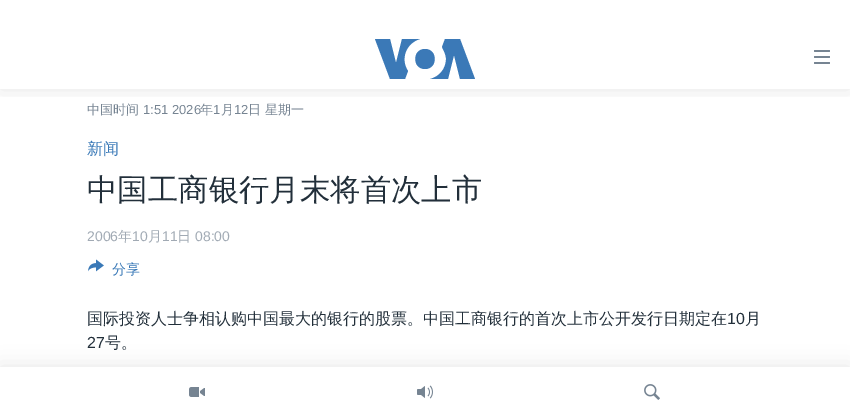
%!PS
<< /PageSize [850 417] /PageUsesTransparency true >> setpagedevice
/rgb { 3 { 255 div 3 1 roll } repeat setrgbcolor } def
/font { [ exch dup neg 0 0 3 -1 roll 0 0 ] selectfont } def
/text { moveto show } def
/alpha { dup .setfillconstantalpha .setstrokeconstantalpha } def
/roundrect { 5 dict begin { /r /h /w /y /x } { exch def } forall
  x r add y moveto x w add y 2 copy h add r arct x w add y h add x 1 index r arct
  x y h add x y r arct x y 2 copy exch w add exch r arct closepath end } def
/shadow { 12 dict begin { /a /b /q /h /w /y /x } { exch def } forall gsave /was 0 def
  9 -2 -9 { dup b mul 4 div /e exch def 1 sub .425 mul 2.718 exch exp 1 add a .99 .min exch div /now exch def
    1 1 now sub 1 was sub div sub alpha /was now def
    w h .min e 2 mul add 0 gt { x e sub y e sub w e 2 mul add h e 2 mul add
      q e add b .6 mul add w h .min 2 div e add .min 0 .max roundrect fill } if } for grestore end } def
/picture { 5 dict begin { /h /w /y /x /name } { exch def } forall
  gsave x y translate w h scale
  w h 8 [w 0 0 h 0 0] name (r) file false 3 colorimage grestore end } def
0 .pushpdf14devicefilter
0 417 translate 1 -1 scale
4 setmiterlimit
255 255 255 rgb
0 0 850 417 rectfill
gsave
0 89 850 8 rectclip
0 0 0 rgb
0 26 850 63 0 10 0.1 shadow
grestore
0 13 850 13 rectfill
59 121 183 rgb
408 71 moveto -3 8 rlineto -15 0 rlineto -15 -40 rlineto 15 0 rlineto 6 24 rlineto 6 -24 rlineto 18 0 rlineto -14 4 -20 20 -12 32 rcurveto closepath 425 49 moveto -13 0 -13 20 0 20 rcurveto 13 0 13 -20 0 -20 rcurveto closepath 446 59 moveto 0 10 -7 18 -16 20 rcurveto 18 0 rlineto 6 -24 rlineto 6 24 rlineto 15 0 rlineto -15 -40 rlineto -15 0 rlineto -3 8 rlineto 2 4 4 8 4 12 rcurveto closepath fill
(img_01.rgb) 814 50 16 14 picture
0 0 0 rgb
0 367 850 50 0 10 0.1 shadow
255 255 255 rgb
0 367 850 50 rectfill
(img_02.rgb) 189 387 16 10 picture
(img_03.rgb) 417 385 16 14 picture
(img_04.rgb) 644 384 16 16 picture
(img_05.rgb) 88 259 16 13 picture
/WenQuanYiZenHei-Medium 13 font
118 132 146 rgb
(中国时间) 87 114 text
/LiberationSans-Regular 13 font
(1:51 2026) 143 114 text
/WenQuanYiZenHei-Medium 13 font
(年) 200 114 text
/LiberationSans-Regular 13 font
(1) 213 114 text
/WenQuanYiZenHei-Medium 13 font
(月) 221 114 text
/LiberationSans-Regular 13 font
(12) 234 114 text
/WenQuanYiZenHei-Medium 13 font
(日 星期一) 248 114 text
/WenQuanYiZenHei-Medium 16 font
58 121 183 rgb
(新闻) 87 154 text
/WenQuanYiZenHei-Medium 30.4 font
34 47 58 rgb
(中国工商银行月末将首次上市) 87 200 text
/LiberationSans-Regular 14 font
161 170 180 rgb
(2006) 87 241 text
/WenQuanYiZenHei-Medium 14 font
(年) 118 241 text
/LiberationSans-Regular 14 font
(10) 132 241 text
/WenQuanYiZenHei-Medium 14 font
(月) 148 241 text
/LiberationSans-Regular 14 font
(11) 162 241 text
/WenQuanYiZenHei-Medium 14 font
(日) 177 241 text
/LiberationSans-Regular 14 font
(08:00) 195 241 text
/WenQuanYiZenHei-Medium 14 font
58 121 183 rgb
(分享) 112 274 text
/WenQuanYiZenHei-Medium 16 font
34 47 58 rgb
(国际投资人士争相认购中国最大的银行的股票。中国工商银行的首次上市公开发行日期定在) 87 324 text
/LiberationSans-Regular 16 font
(10) 727 324 text
/WenQuanYiZenHei-Medium 16 font
(月) 745 324 text
/LiberationSans-Regular 16 font
(27) 87 348 text
/WenQuanYiZenHei-Medium 16 font
(号。) 105 348 text
.poppdf14devicefilter showpage
